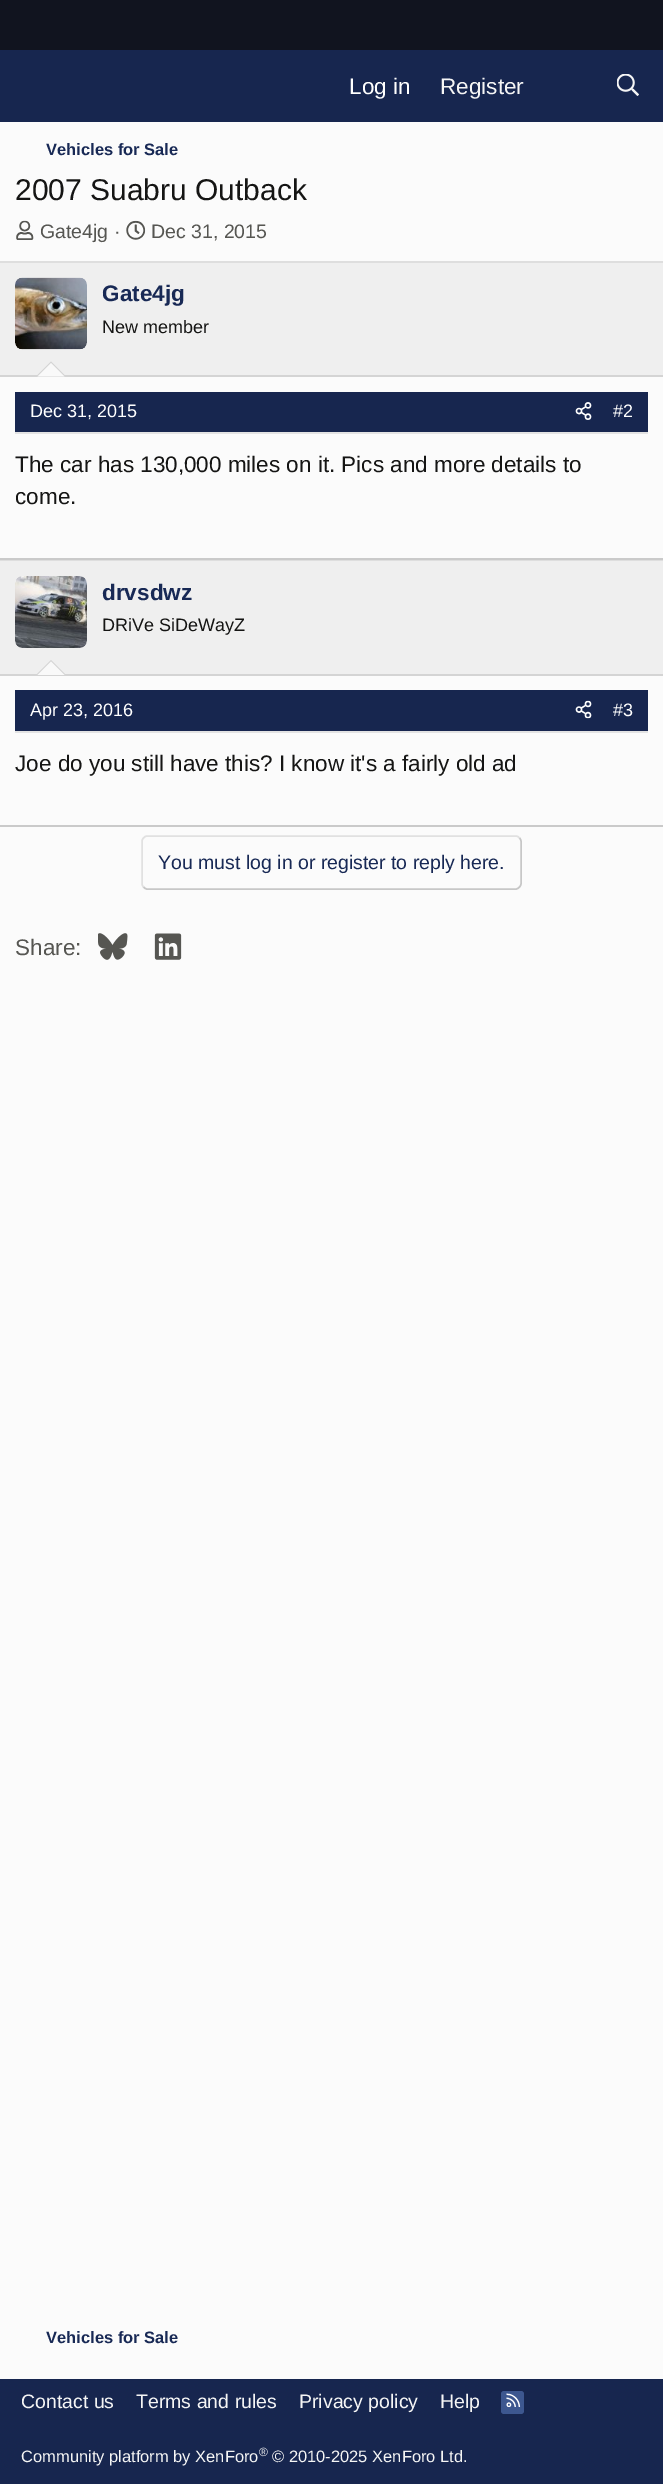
%!PS
<< /PageSize [663 2484] >> setpagedevice
/rgb { 3 { 255 div 3 1 roll } repeat setrgbcolor } def
/font { [ exch dup neg 0 0 3 -1 roll 0 0 ] selectfont } def
/text { moveto show } def
/roundrect { 5 dict begin { /r /h /w /y /x } { exch def } forall
  x r add y moveto x w add y 2 copy h add r arct x w add y h add x 1 index r arct
  x y h add x y r arct x y 2 copy exch w add exch r arct closepath end } def
/picture { 5 dict begin { /h /w /y /x /name } { exch def } forall
  gsave x y translate w h scale
  w h 8 [w 0 0 h 0 0] name (r) file false 3 colorimage grestore end } def
0 2484 translate 1 -1 scale
4 setmiterlimit
17 20 31 rgb
0 0 663 2484 rectfill
23 38 79 rgb
0 50 663 72 rectfill
(img_01.rgb) 617 74 22 22 picture
251 251 251 rgb
0 122 663 2257 rectfill
(img_02.rgb) 16 220 18 20 picture
(img_03.rgb) 126 220 20 20 picture
222 222 222 rgb
0 261 663 2 rectfill
202 202 202 rgb
0 558 663 2 rectfill
239 239 239 rgb
0 263 663 112 rectfill
212 212 212 rgb
0 375 663 2 rectfill
249 249 249 rgb
15 278 72 72 8 roundrect fill
(img_04.rgb) 15 277 72 73 picture
212 212 212 rgb
66 376.5 moveto -30 0 rlineto 15 -15 rlineto closepath fill
249 249 249 rgb
64.5 376.5 moveto -27 0 rlineto 13.5 -13.5 rlineto closepath fill
23 38 79 rgb
15 392 633 40 rectfill
227 227 227 rgb
15 432 633 2 rectfill
(img_05.rgb) 575 402 17 18 picture
222 222 222 rgb
0 560 663 1 rectfill
202 202 202 rgb
0 825 663 2 rectfill
239 239 239 rgb
0 561 663 113 rectfill
212 212 212 rgb
0 674 663 2 rectfill
249 249 249 rgb
15 576 72 72 8 roundrect fill
(img_06.rgb) 15 576 72 72 picture
212 212 212 rgb
66 675 moveto -30 0 rlineto 15 -15 rlineto closepath fill
249 249 249 rgb
64.5 675 moveto -27 0 rlineto 13.5 -13.5 rlineto closepath fill
23 38 79 rgb
15 690 633 41 rectfill
227 227 227 rgb
15 731 633 2 rectfill
(img_07.rgb) 575 700 17 19 picture
199 199 199 rgb
1.5 setlinewidth
519.5 838 moveto 1 1 1.5 2 1.5 3.5 rcurveto 0 42 rlineto 0 1.5 -0.5 2.5 -1.5 3.5 rcurveto -1 1 -2 2 -3.5 2 rcurveto -369 0 rlineto -1.5 0 -2.5 -1 -3.5 -2 rcurveto stroke
225 225 225 rgb
143.5 887 moveto -1 -1 -1.5 -2 -1.5 -3.5 rcurveto 0 -42 rlineto 0 -1.5 0.5 -2.5 1.5 -3.5 rcurveto 1 -1 2 -2 3.5 -2 rcurveto 369 0 rlineto 1.5 0 2.5 1 3.5 2 rcurveto stroke
(img_08.rgb) 98 933 30 27 picture
(img_09.rgb) 154 933 28 27 picture
23 38 79 rgb
0 2379 663 105 rectfill
61 87 143 rgb
501 2391 23 23 3 roundrect fill
(img_10.rgb) 506 2393 15 14 picture
/LiberationSans-Regular 22.5 font
255 255 255 rgb
(Log in) 349 94 text
245 245 245 rgb
(Register) 440 94 text
/LiberationSans-Bold 16.5 font
24 41 85 rgb
(Vehicles for Sale) 46 155 text
/LiberationSans-Regular 30 font
21 21 20 rgb
(2007 Suabru Outback) 15 200 text
/LiberationSans-Regular 19.5 font
86 86 82 rgb
(Gate4jg ·) 40 238 text
(Dec 31, 2015) 151 238 text
/LiberationSans-Bold 22.5 font
24 41 85 rgb
(Gate4jg) 102 301 text
/LiberationSans-Regular 18 font
21 21 20 rgb
(New member) 102 333 text
255 255 255 rgb
(Dec 31, 2015) 30 417 text
(#2) 613 417 text
/LiberationSans-Regular 22.5 font
21 21 20 rgb
(The car has 130,000 miles on it. Pics and more details to) 15 472 text
(come.) 15 504 text
/LiberationSans-Bold 22.5 font
24 41 85 rgb
(drvsdwz) 102 600 text
/LiberationSans-Regular 18 font
21 21 20 rgb
(DRiVe SiDeWayZ) 102 631 text
255 255 255 rgb
(Apr 23, 2016) 30 716 text
(#3) 613 716 text
/LiberationSans-Regular 22.5 font
21 21 20 rgb
(Joe do you still have this? I know it's a fairly old ad) 15 771 text
/LiberationSans-Regular 19.5 font
24 41 85 rgb
(You must log in or register to reply here.) 158 869 text
/LiberationSans-Regular 22.5 font
86 86 82 rgb
(Share:) 15 955 text
/LiberationSans-Bold 16.5 font
24 41 85 rgb
(Vehicles for Sale) 46 2343 text
/LiberationSans-Regular 19.5 font
245 245 245 rgb
(Contact us) 21 2408 text
(Terms and rules) 136 2408 text
(Privacy policy) 299 2408 text
(Help) 440 2408 text
/LiberationSans-Regular 16.5 font
(Community platform by XenForo) 21 2462 text
/LiberationSans-Regular 12 font
(®) 259 2456 text
/LiberationSans-Regular 16.5 font
(© 2010-2025 XenForo Ltd.) 272 2462 text
showpage
